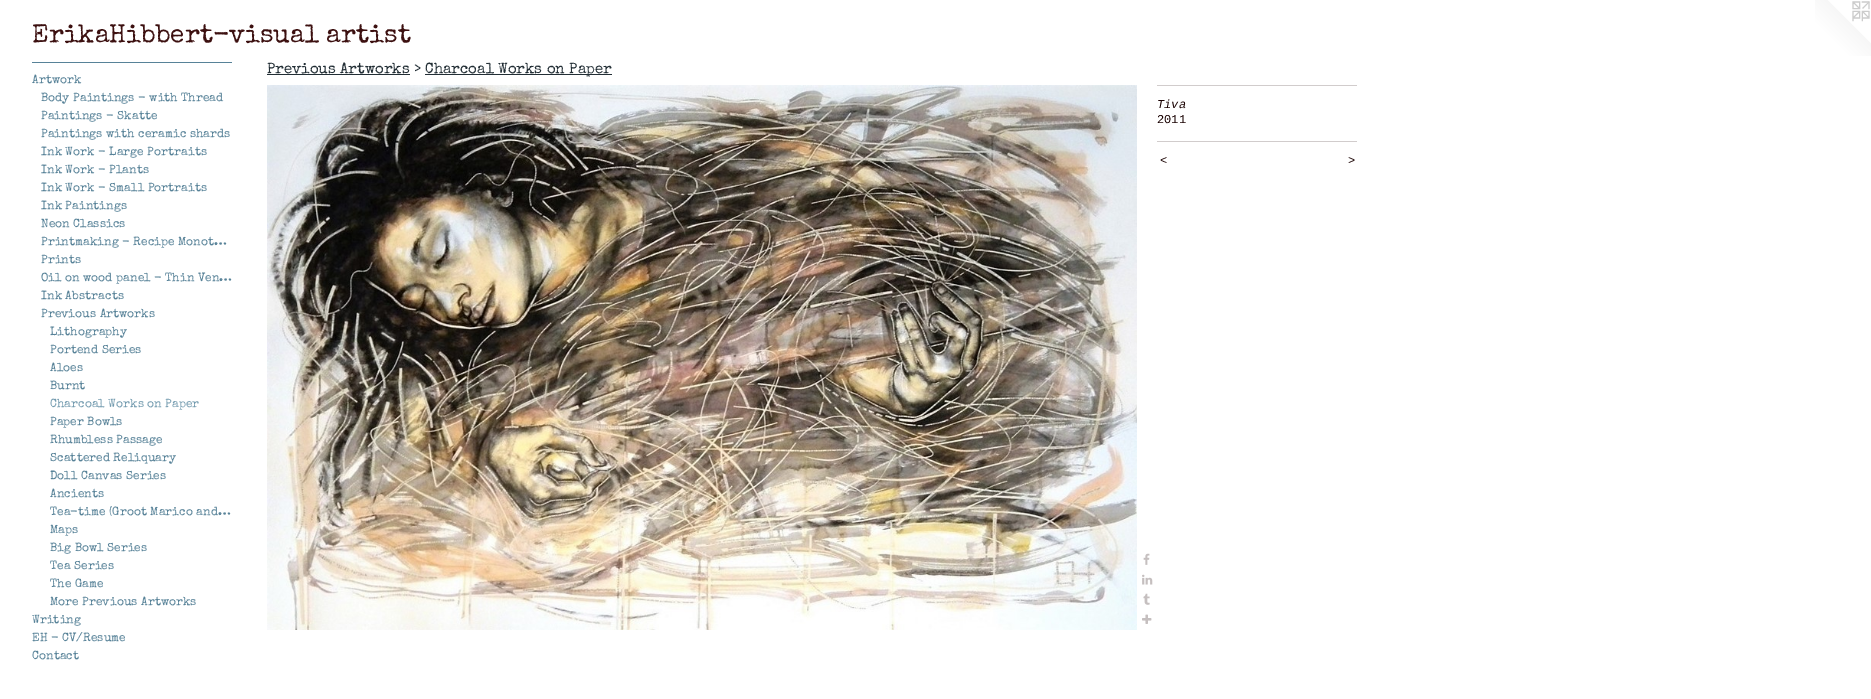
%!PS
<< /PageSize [1871 699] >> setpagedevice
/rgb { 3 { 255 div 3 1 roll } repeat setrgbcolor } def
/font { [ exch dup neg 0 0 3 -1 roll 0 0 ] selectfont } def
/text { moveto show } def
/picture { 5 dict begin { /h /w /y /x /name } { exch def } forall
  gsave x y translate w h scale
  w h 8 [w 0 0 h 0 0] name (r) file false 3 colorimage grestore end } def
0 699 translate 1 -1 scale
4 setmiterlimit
255 255 255 rgb
0 0 1871 699 rectfill
(img_01.rgb) 1815 0 56 56 picture
87 130 152 rgb
32 62 200 1 rectfill
34 46 53 rgb
267 74 143 1 rectfill
425 74 187 1 rectfill
(img_02.rgb) 267 85 870 545 picture
(img_03.rgb) 1143 553 7 12 picture
(img_04.rgb) 1142 574 11 11 picture
(img_05.rgb) 1143 593 7 12 picture
(img_06.rgb) 1142 614 10 10 picture
209 204 204 rgb
1157 85 200 1 rectfill
1157 141 200 1 rectfill
/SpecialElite-Regular 26 font
60 16 16 rgb
(ErikaHibbert-visual artist) 32 42 text
/SpecialElite-Regular 12 font
87 130 152 rgb
(Artwork) 32 83 text
(Body Paintings - with Thread) 41 101 text
(Paintings - Skatte) 41 119 text
(Paintings with ceramic shards) 41 137 text
(Ink Work - Large Portraits) 41 155 text
(Ink Work - Plants) 41 173 text
(Ink Work - Small Portraits) 41 191 text
(Ink Paintings) 41 209 text
(Neon Classics) 41 227 text
(Printmaking - Recipe Monot…) 41 245 text
(Prints) 41 263 text
(Oil on wood panel - Thin Ven…) 41 281 text
(Ink Abstracts) 41 299 text
(Previous Artworks) 41 317 text
(Lithography) 50 335 text
(Portend Series) 50 353 text
(Aloes) 50 371 text
(Burnt) 50 389 text
115 155 175 rgb
(Charcoal Works on Paper) 50 407 text
87 130 152 rgb
(Paper Bowls) 50 425 text
(Rhumbless Passage) 50 443 text
(Scattered Reliquary) 50 461 text
(Doll Canvas Series) 50 479 text
(Ancients) 50 497 text
(Tea-time \(Groot Marico and…) 50 515 text
(Maps) 50 533 text
(Big Bowl Series) 50 551 text
(Tea Series) 50 569 text
(The Game) 50 587 text
(More Previous Artworks) 50 605 text
(Writing) 32 623 text
(EH - CV/Resume) 32 641 text
(Contact) 32 659 text
/SpecialElite-Regular 15 font
34 46 53 rgb
(Previous Artworks >) 267 73 text
(Charcoal Works on Paper) 425 73 text
/LiberationMono-Italic 12 font
25 1 1 rgb
(Tiva) 1157 108 text
/LiberationMono-Regular 12 font
(2011) 1157 123 text
/LiberationMono-Italic 12 font
1160 164 moveto 1 0 (<) ashow
1348 164 moveto 1 0 (>) ashow
showpage
